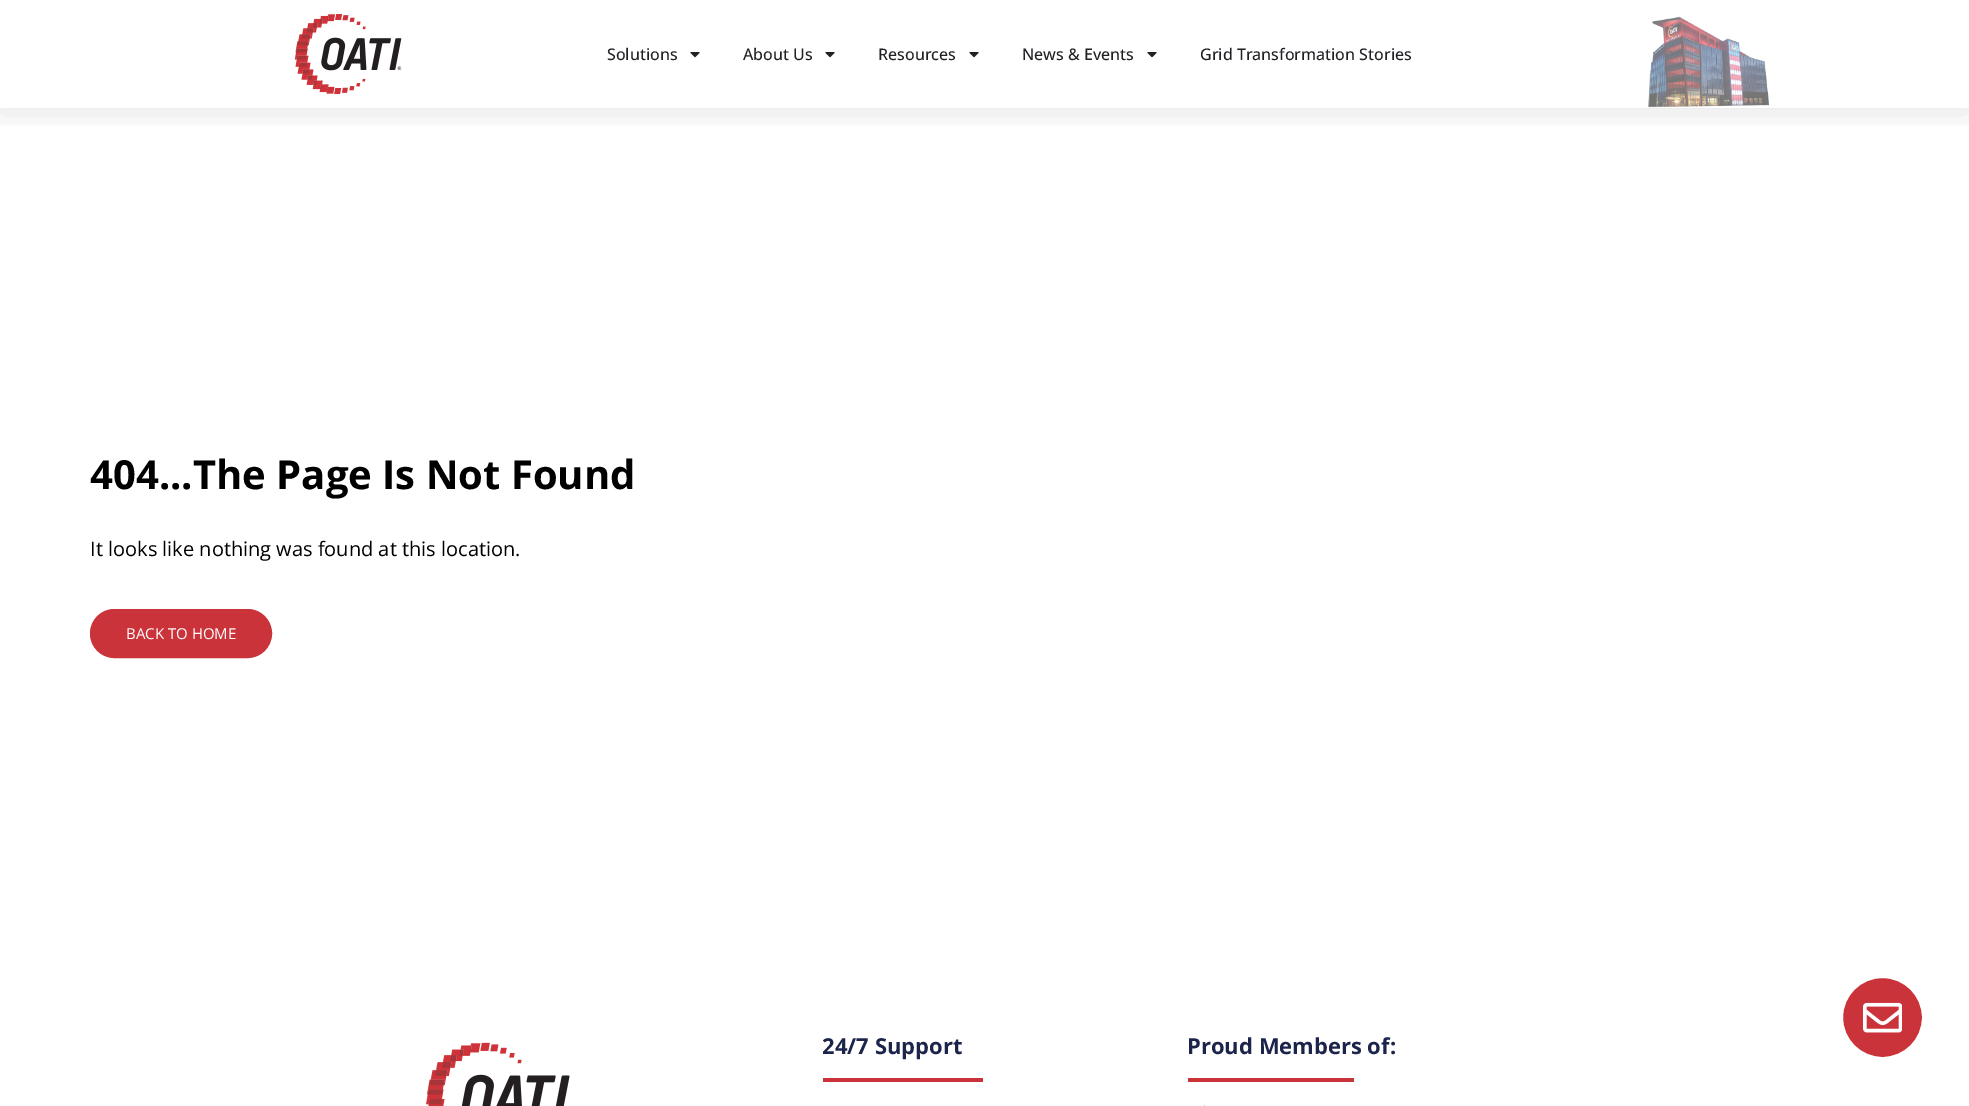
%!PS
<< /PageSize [1969 1106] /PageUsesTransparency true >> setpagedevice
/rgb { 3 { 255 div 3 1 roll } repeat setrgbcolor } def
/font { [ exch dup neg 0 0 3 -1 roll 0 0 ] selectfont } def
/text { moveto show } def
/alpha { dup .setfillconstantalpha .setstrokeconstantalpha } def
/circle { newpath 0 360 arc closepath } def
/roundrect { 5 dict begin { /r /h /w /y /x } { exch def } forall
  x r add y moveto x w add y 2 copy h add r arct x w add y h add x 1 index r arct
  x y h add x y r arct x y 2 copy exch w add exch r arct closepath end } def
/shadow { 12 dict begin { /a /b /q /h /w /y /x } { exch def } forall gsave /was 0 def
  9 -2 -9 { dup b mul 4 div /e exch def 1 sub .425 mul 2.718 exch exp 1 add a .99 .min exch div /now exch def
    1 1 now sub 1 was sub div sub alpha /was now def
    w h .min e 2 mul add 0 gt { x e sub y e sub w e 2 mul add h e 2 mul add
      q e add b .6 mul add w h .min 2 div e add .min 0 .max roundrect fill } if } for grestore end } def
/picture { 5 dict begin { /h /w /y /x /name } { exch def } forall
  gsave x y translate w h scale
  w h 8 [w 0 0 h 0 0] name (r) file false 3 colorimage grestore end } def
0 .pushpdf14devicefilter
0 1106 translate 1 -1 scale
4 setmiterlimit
255 255 255 rgb
0 0 1969 1106 rectfill
gsave
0 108 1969 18 rectclip
0 0 0 rgb
0 5 1969 108 0 15 0.1 shadow
grestore
(img_01.rgb) 294 14 108 80 picture
(img_02.rgb) 690 52 10 6 picture
(img_02.rgb) 825 52 10 6 picture
(img_02.rgb) 969 52 10 6 picture
(img_02.rgb) 1147 52 10 6 picture
(img_03.rgb) 1648 16 121 92 picture
203 51 59 rgb
90.5 609.5 181 48 24 roundrect gsave fill grestore
stroke
(img_04.rgb) 426 1042 144 64 picture
823 1078 160 4 rectfill
1188 1078 166 4 rectfill
(img_05.rgb) 1203 1104 3 2 picture
1882.5 1017.5 41 circle gsave fill grestore
255 255 255 rgb
3 setlinewidth
stroke
(img_06.rgb) 1863 1002 39 31 picture
/OpenSans-Medium 16 font
31 33 36 rgb
(Solutions) 607 60 text
(About Us) 743 60 text
(Resources) 878 60 text
(News & Events) 1022 60 text
(Grid Transformation Stories) 1200 60 text
/OpenSans-Bold 40 font
0 0 0 rgb
(404...The Page Is Not Found) 90 489 text
/OpenSans-Regular 20 font
(It looks like nothing was found at this location.) 90 556 text
/OpenSans-Regular 15 font
255 255 255 rgb
(BACK TO HOME) 126 639 text
/OpenSans-Bold 22 font
28 36 75 rgb
(24/7 Support) 822 1054 text
(Proud Members of:) 1187 1054 text
.poppdf14devicefilter showpage
